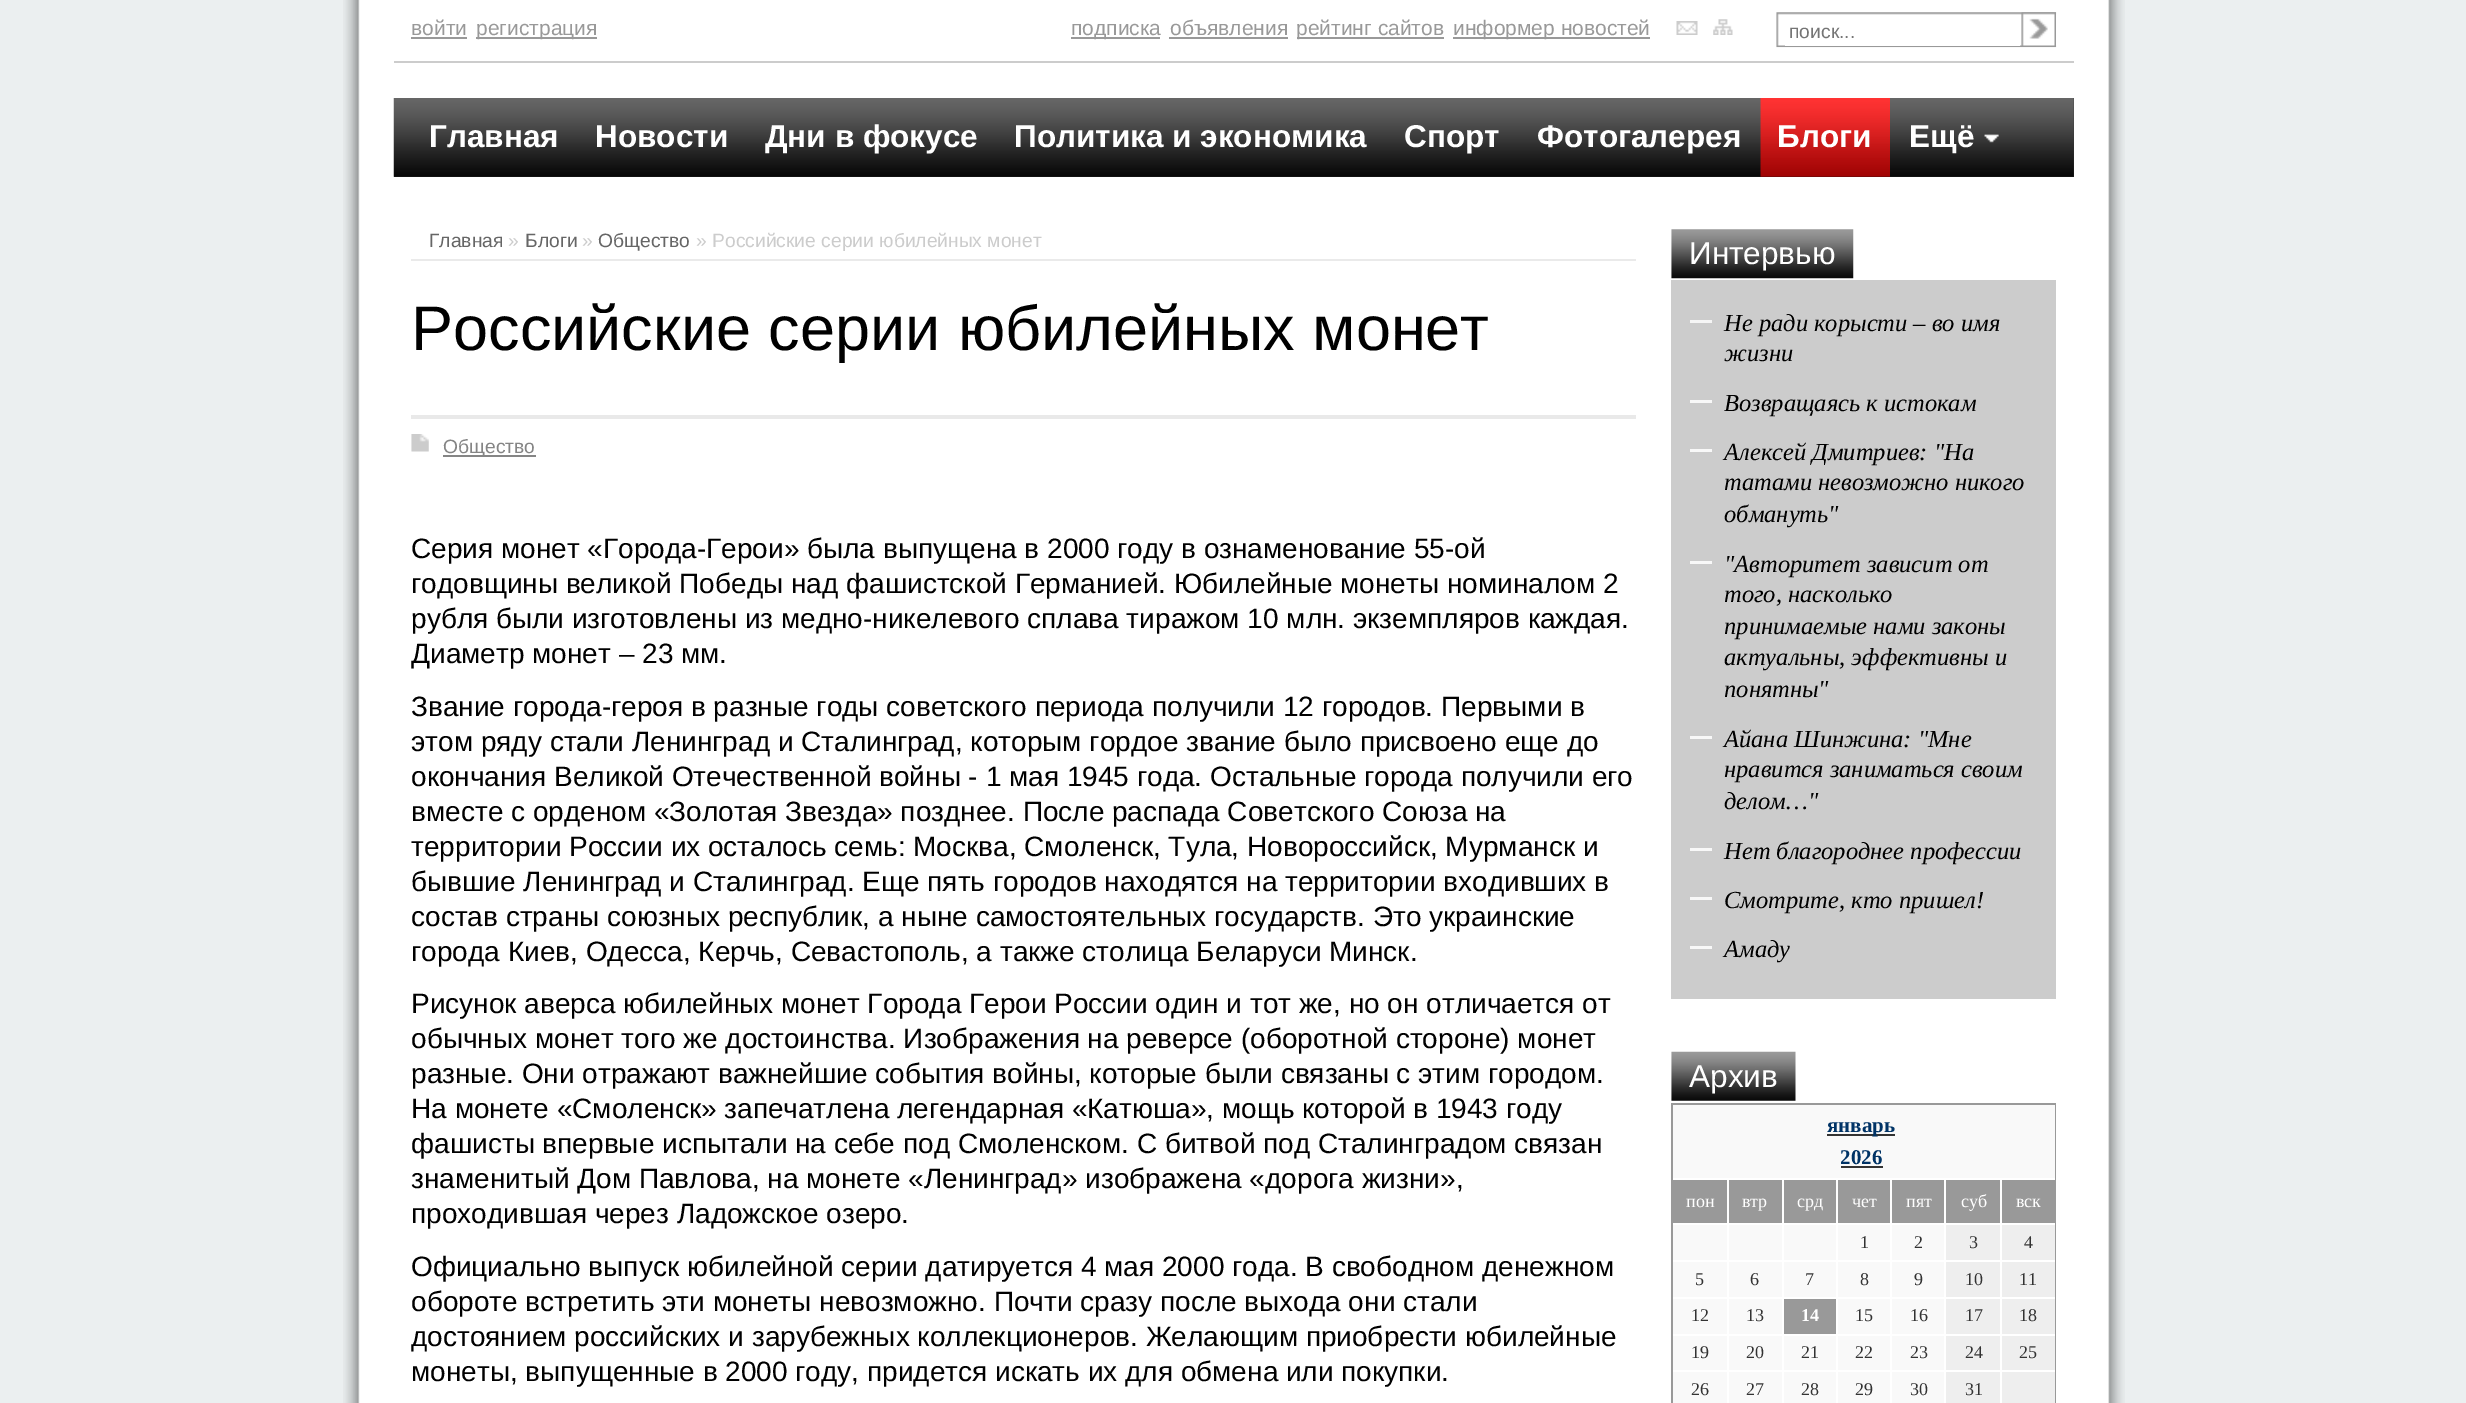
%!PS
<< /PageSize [2466 1403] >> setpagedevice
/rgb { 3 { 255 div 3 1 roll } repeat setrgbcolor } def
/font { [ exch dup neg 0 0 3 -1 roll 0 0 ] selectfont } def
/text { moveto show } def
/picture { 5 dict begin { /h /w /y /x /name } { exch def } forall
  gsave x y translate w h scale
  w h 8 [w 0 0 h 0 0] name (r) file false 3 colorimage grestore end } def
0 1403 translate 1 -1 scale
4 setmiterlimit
235 239 240 rgb
0 0 2466 1403 rectfill
(img_01.rgb) 343 0 1782 1403 picture
204 204 204 rgb
394 61 1680 2 rectfill
153 153 153 rgb
411 37 56 2 rectfill
476 37 121 2 rectfill
1071 37 89 2 rectfill
1169 37 119 2 rectfill
1297 37 147 2 rectfill
1453 37 197 2 rectfill
(img_02.rgb) 1676 21 22 14 picture
(img_03.rgb) 1713 19 20 16 picture
(img_04.rgb) 1776 12 281 36 picture
255 255 255 rgb
1785 45 235 1 rectfill
(img_05.rgb) 2021 12 35 34 picture
51 51 51 rgb
394 98 1680 79 rectfill
(img_06.rgb) 393 98 1681 79 picture
(img_07.rgb) 1760 98 130 79 picture
(img_08.rgb) 1984 134 15 9 picture
234 234 234 rgb
411 259 1225 2 rectfill
233 233 233 rgb
411 415 1225 4 rectfill
(img_09.rgb) 411 434 18 18 picture
133 133 133 rgb
443 455 93 2 rectfill
(img_10.rgb) 1671 229 183 50 picture
204 204 204 rgb
1671 280 385 719 rectfill
245 245 245 rgb
1690 320 22 3 rectfill
248 248 248 rgb
1690 400 22 3 rectfill
1690 449 22 3 rectfill
1690 561 22 3 rectfill
1690 736 22 3 rectfill
1690 848 22 3 rectfill
1690 897 22 3 rectfill
1690 946 22 3 rectfill
(img_11.rgb) 1671 1051 125 50 picture
153 153 153 rgb
1671 1103 385 2 rectfill
2055 1103 1 300 rectfill
1671 1103 2 300 rectfill
249 249 249 rgb
1673 1105 382 73 rectfill
51 51 51 rgb
1827 1134 68 2 rectfill
1841 1166 42 2 rectfill
153 153 153 rgb
1673 1180 54 43 rectfill
1729 1180 53 43 rectfill
1784 1180 52 43 rectfill
1838 1180 52 43 rectfill
1892 1180 52 43 rectfill
1946 1180 54 43 rectfill
2002 1180 53 43 rectfill
249 249 249 rgb
1673 1225 54 35 rectfill
1729 1225 53 35 rectfill
1784 1225 52 35 rectfill
1838 1225 52 35 rectfill
1892 1225 52 35 rectfill
238 238 238 rgb
1946 1225 54 35 rectfill
2002 1225 53 35 rectfill
249 249 249 rgb
1673 1262 54 35 rectfill
1729 1262 53 35 rectfill
1784 1262 52 35 rectfill
1838 1262 52 35 rectfill
1892 1262 52 35 rectfill
238 238 238 rgb
1946 1262 54 35 rectfill
2002 1262 53 35 rectfill
249 249 249 rgb
1673 1299 54 35 rectfill
1729 1299 53 35 rectfill
153 153 153 rgb
1784 1299 52 35 rectfill
249 249 249 rgb
1838 1299 52 35 rectfill
1892 1299 52 35 rectfill
238 238 238 rgb
1946 1299 54 35 rectfill
2002 1299 53 35 rectfill
249 249 249 rgb
1673 1336 54 34 rectfill
1729 1336 53 34 rectfill
1784 1336 52 34 rectfill
1838 1336 52 34 rectfill
1892 1336 52 34 rectfill
238 238 238 rgb
1946 1336 54 34 rectfill
2002 1336 53 34 rectfill
249 249 249 rgb
1673 1372 54 31 rectfill
1729 1372 53 31 rectfill
1784 1372 52 31 rectfill
1838 1372 52 31 rectfill
1892 1372 52 31 rectfill
238 238 238 rgb
1946 1372 54 31 rectfill
2002 1372 53 31 rectfill
/LiberationSans-Regular 21 font
153 153 153 rgb
(войти) 411 35 text
(регистрация) 476 35 text
(подписка) 1071 35 text
(объявления) 1170 35 text
(рейтинг сайтов) 1296 35 text
(информер новостей) 1453 35 text
/LiberationSans-Regular 19.25 font
117 117 117 rgb
(поиск...) 1789 38 text
/LiberationSans-Bold 31.5 font
255 255 255 rgb
(Главная) 429 147 text
(Новости) 595 147 text
(Дни в фокусе) 765 147 text
(Политика и экономика) 1014 147 text
(Спорт) 1404 147 text
(Фотогалерея) 1537 147 text
(Блоги) 1777 147 text
(Ещё) 1909 147 text
/LiberationSans-Regular 19.25 font
102 102 102 rgb
(Главная) 429 247 text
204 204 204 rgb
(») 508 247 text
102 102 102 rgb
(Блоги) 525 247 text
204 204 204 rgb
(») 582 247 text
102 102 102 rgb
(Общество) 598 247 text
204 204 204 rgb
(» Российские серии юбилейных монет) 696 247 text
/LiberationSans-Regular 63 font
0 0 0 rgb
(Российские серии юбилейных монет) 411 350 text
/LiberationSans-Regular 19.25 font
133 133 133 rgb
(Общество) 443 453 text
/LiberationSans-Regular 28 font
0 0 0 rgb
(Серия монет «Города-Герои» была выпущена в 2000 году в ознаменование 55-ой) 411 558 text
(годовщины великой Победы над фашистской Германией. Юбилейные монеты номиналом 2) 411 593 text
(рубля были изготовлены из медно-никелевого сплава тиражом 10 млн. экземпляров каждая.) 411 628 text
(Диаметр монет – 23 мм.) 411 663 text
(Звание города-героя в разные годы советского периода получили 12 городов. Первыми в) 411 716 text
(этом ряду стали Ленинград и Сталинград, которым гордое звание было присвоено еще до) 411 751 text
(окончания Великой Отечественной войны - 1 мая 1945 года. Остальные города получили его) 411 786 text
(вместе с орденом «Золотая Звезда» позднее. После распада Советского Союза на) 411 821 text
(территории России их осталось семь: Москва, Смоленск, Тула, Новороссийск, Мурманск и) 411 856 text
(бывшие Ленинград и Сталинград. Еще пять городов находятся на территории входивших в) 411 891 text
(состав страны союзных республик, а ныне самостоятельных государств. Это украинские) 411 926 text
(города Киев, Одесса, Керчь, Севастополь, а также столица Беларуси Минск.) 411 961 text
(Рисунок аверса юбилейных монет Города Герои России один и тот же, но он отличается от) 411 1013 text
(обычных монет того же достоинства. Изображения на реверсе \(оборотной стороне\) монет) 411 1048 text
(разные. Они отражают важнейшие события войны, которые были связаны с этим городом.) 411 1083 text
(На монете «Смоленск» запечатлена легендарная «Катюша», мощь которой в 1943 году) 411 1118 text
(фашисты впервые испытали на себе под Смоленском. С битвой под Сталинградом связан) 411 1153 text
(знаменитый Дом Павлова, на монете «Ленинград» изображена «дорога жизни»,) 411 1188 text
(проходившая через Ладожское озеро.) 411 1223 text
(Официально выпуск юбилейной серии датируется 4 мая 2000 года. В свободном денежном) 411 1276 text
(обороте встретить эти монеты невозможно. Почти сразу после выхода они стали) 411 1311 text
(достоянием российских и зарубежных коллекционеров. Желающим приобрести юбилейные) 411 1346 text
(монеты, выпущенные в 2000 году, придется искать их для обмена или покупки.) 411 1381 text
/LiberationSans-Regular 31.5 font
255 255 255 rgb
(Интервью) 1689 264 text
/LiberationSerif-Italic 24.5 font
0 0 0 rgb
(Не ради корысти – во имя) 1724 331 text
(жизни) 1724 361 text
(Возвращаясь к истокам) 1724 411 text
(Алексей Дмитриев: "На) 1724 460 text
(татами невозможно никого) 1724 490 text
(обмануть") 1724 522 text
("Авторитет зависит от) 1724 572 text
(того, насколько) 1724 602 text
(принимаемые нами законы) 1724 634 text
(актуальны, эффективны и) 1724 665 text
(понятны") 1724 697 text
(Айана Шинжина: "Мне) 1724 747 text
(нравится заниматься своим) 1724 777 text
(делом…") 1724 809 text
(Нет благороднее профессии) 1724 859 text
(Смотрите, кто пришел!) 1724 908 text
(Амаду) 1724 957 text
/LiberationSans-Regular 31.5 font
255 255 255 rgb
(Архив) 1689 1087 text
/LiberationSerif-Bold 21 font
0 51 102 rgb
(январь) 1827 1132 text
(2026) 1840 1164 text
/LiberationSerif-Regular 18 font
255 255 255 rgb
(пон) 1686 1207 text
(втр) 1742 1207 text
(срд) 1797 1207 text
(чет) 1852 1207 text
(пят) 1906 1207 text
(суб) 1961 1207 text
(вск) 2016 1207 text
51 51 51 rgb
(1) 1860 1248 text
(2) 1914 1248 text
(3) 1969 1248 text
(4) 2024 1248 text
(5) 1695 1285 text
(6) 1750 1285 text
(7) 1805 1285 text
(8) 1860 1285 text
(9) 1914 1285 text
(10) 1965 1285 text
(11) 2019 1285 text
(12) 1691 1321 text
(13) 1746 1321 text
/LiberationSerif-Bold 18 font
255 255 255 rgb
(14) 1801 1321 text
/LiberationSerif-Regular 18 font
51 51 51 rgb
(15) 1855 1321 text
(16) 1910 1321 text
(17) 1965 1321 text
(18) 2019 1321 text
(19) 1691 1358 text
(20) 1746 1358 text
(21) 1801 1358 text
(22) 1855 1358 text
(23) 1910 1358 text
(24) 1965 1358 text
(25) 2019 1358 text
(26) 1691 1395 text
(27) 1746 1395 text
(28) 1801 1395 text
(29) 1855 1395 text
(30) 1910 1395 text
(31) 1965 1395 text
showpage
